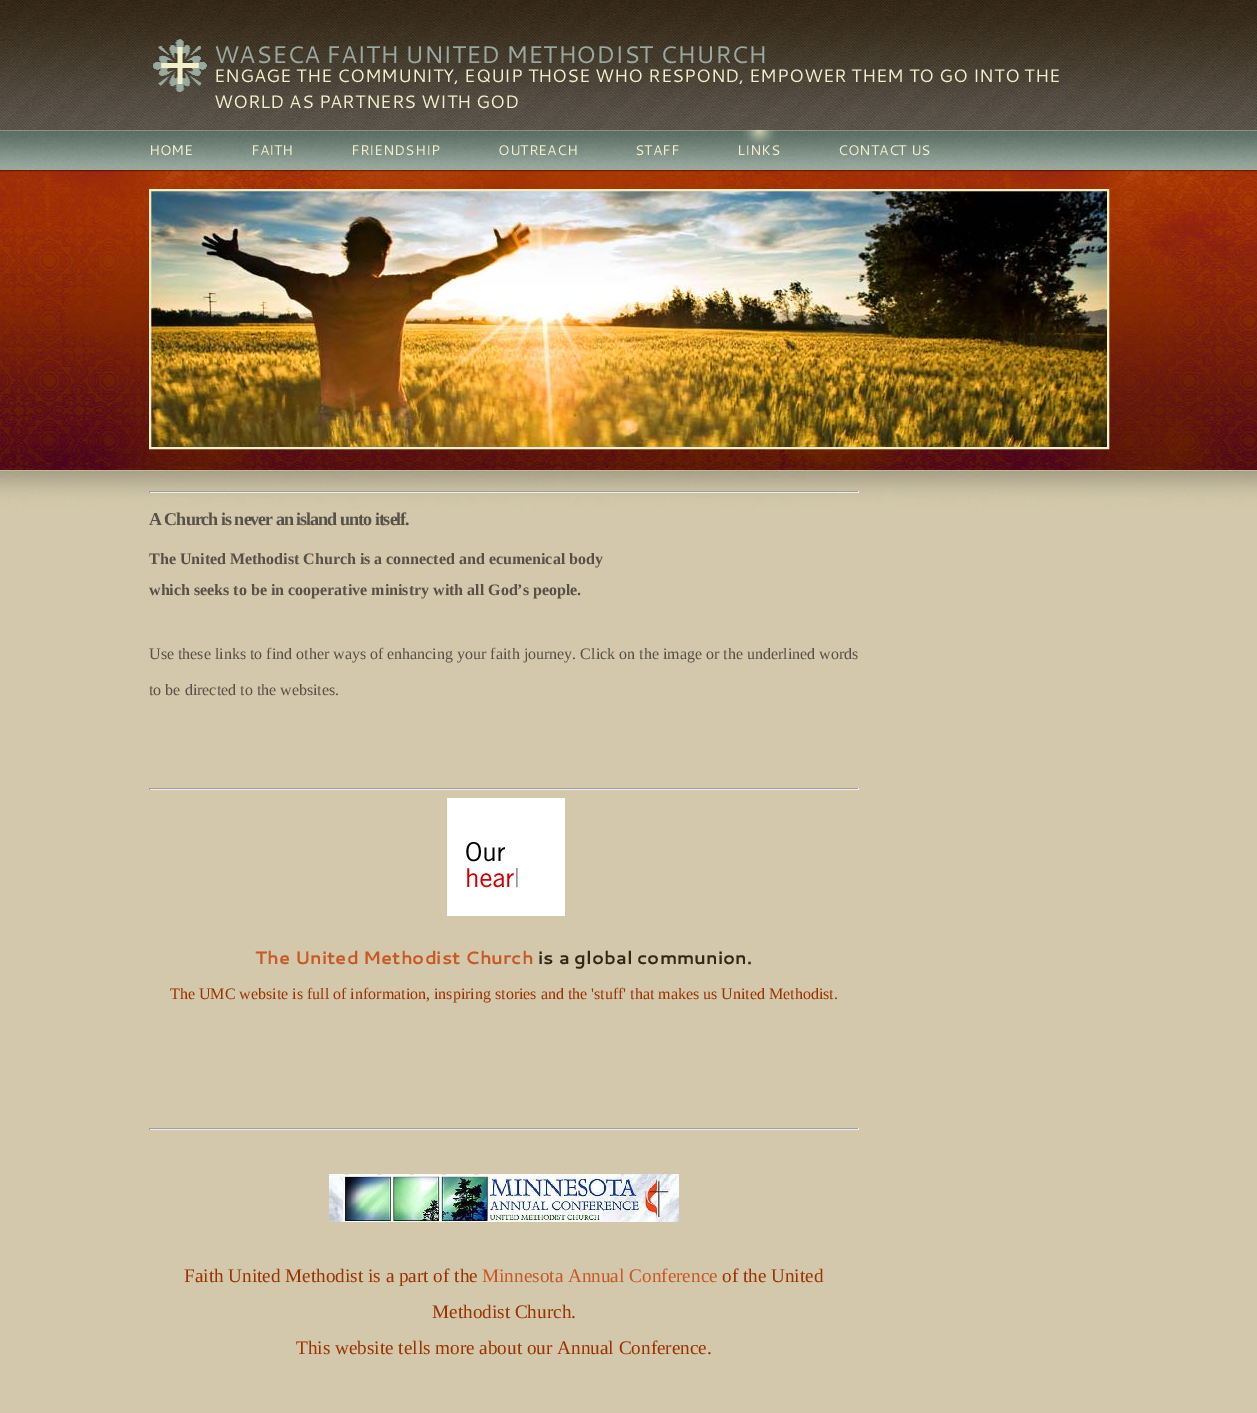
%!PS
<< /PageSize [1257 1413] >> setpagedevice
/rgb { 3 { 255 div 3 1 roll } repeat setrgbcolor } def
/font { [ exch dup neg 0 0 3 -1 roll 0 0 ] selectfont } def
/text { moveto show } def
/picture { 5 dict begin { /h /w /y /x /name } { exch def } forall
  gsave x y translate w h scale
  w h 8 [w 0 0 h 0 0] name (r) file false 3 colorimage grestore end } def
0 1413 translate 1 -1 scale
4 setmiterlimit
211 200 172 rgb
0 0 1257 1413 rectfill
(img_01.rgb) 0 0 1257 509 picture
(img_02.rgb) 153 39 54 53 picture
(img_03.rgb) 151 191 956 256 picture
244 241 200 rgb
2 setlinewidth
150 190 958 258 rectstroke
(img_04.rgb) 738 130 42 40 picture
159 159 159 rgb
149 491 710 1 rectfill
238 238 238 rgb
858 491 1 2 rectfill
149 492 710 1 rectfill
159 159 159 rgb
149 491 1 2 rectfill
149 788 710 1 rectfill
238 238 238 rgb
858 788 1 2 rectfill
149 789 710 1 rectfill
159 159 159 rgb
149 788 1 2 rectfill
(img_05.rgb) 447 798 118 118 picture
149 1128 710 1 rectfill
238 238 238 rgb
858 1128 1 2 rectfill
149 1129 710 1 rectfill
159 159 159 rgb
149 1128 1 2 rectfill
(img_06.rgb) 329 1174 350 48 picture
/Cantarell-Regular 24 font
154 168 160 rgb
(WASECA FAITH UNITED METHODIST CHURCH) 214 63 text
/Cantarell-Regular 18 font
242 237 203 rgb
(ENGAGE THE COMMUNITY, EQUIP THOSE WHO RESPOND, EMPOWER THEM TO GO INTO THE) 214 82 text
(WORLD AS PARTNERS WITH GOD) 214 108 text
/Cantarell-Regular 14 font
(HOME) 149 155 text
(FAITH) 251 155 text
(FRIENDSHIP) 351 155 text
(OUTREACH) 498 155 text
(STAFF) 635 155 text
(LINKS) 737 155 text
(CONTACT US) 838 155 text
/LiberationSerif-Bold 18 font
88 81 72 rgb
149 525 moveto -1 0 (A Church is never an island unto itself.) ashow
/LiberationSerif-Bold 16 font
(The United Methodist Church is a connected and ecumenical body) 149 564 text
(which seeks to be in cooperative ministry with all God’s people.) 149 595 text
/LiberationSerif-Regular 16 font
(Use these links to find other ways of enhancing your faith journey. Click on the image or the underlined words) 149 659 text
(to be directed to the websites.) 149 695 text
/Cantarell-Bold 18 font
200 89 37 rgb
(The United Methodist Church) 255 964 text
51 39 23 rgb
(is a global communion.) 538 964 text
/LiberationSerif-Regular 16 font
153 51 0 rgb
(The UMC website is full of information, inspiring stories and the 'stuff' that makes us United Methodist.) 170 999 text
/LiberationSerif-Regular 19.2 font
(Faith United Methodist is a part of the) 184 1282 text
200 89 37 rgb
(Minnesota Annual Conference) 482 1282 text
153 51 0 rgb
(of the United) 722 1282 text
(Methodist Church.) 432 1318 text
(This website tells more about our Annual Conference.) 296 1354 text
showpage
